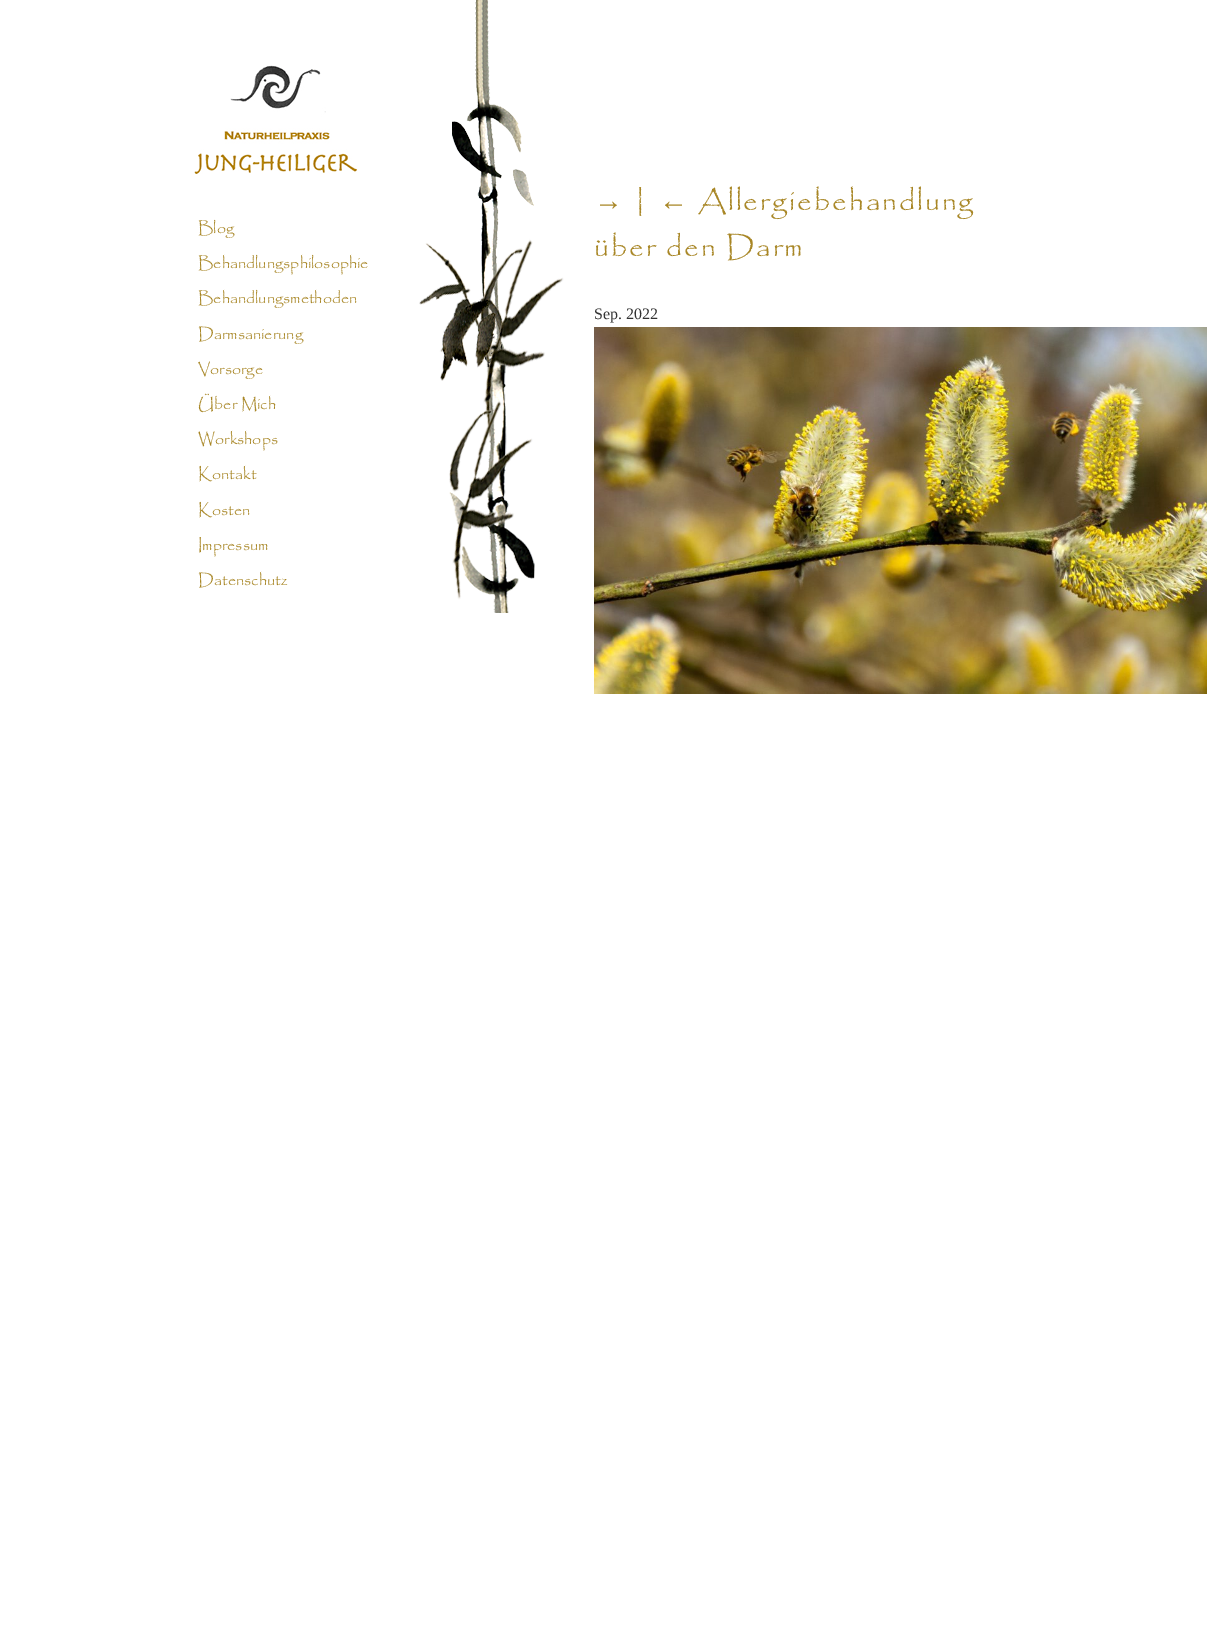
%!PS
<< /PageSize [1207 1643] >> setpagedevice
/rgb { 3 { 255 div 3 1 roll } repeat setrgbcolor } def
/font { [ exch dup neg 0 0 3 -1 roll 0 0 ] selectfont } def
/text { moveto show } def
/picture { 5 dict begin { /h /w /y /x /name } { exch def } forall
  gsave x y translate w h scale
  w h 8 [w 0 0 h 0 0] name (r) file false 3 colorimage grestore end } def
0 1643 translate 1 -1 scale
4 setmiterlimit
255 255 255 rgb
0 0 1207 1643 rectfill
(img_01.rgb) 419 0 145 613 picture
(img_02.rgb) 194 65 164 109 picture
(img_03.rgb) 594 327 613 367 picture
/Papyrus-Regular 16 font
168 134 37 rgb
(Blog) 198 233 text
(Behandlungsphilosophie) 198 268 text
(Behandlungsmethoden) 198 303 text
(Darmsanierung) 198 339 text
(Vorsorge) 198 374 text
(Über Mich) 198 409 text
(Workshops) 198 444 text
(Kontakt) 198 479 text
(Kosten) 198 515 text
(Impressum) 198 550 text
(Datenschutz) 198 585 text
/LiberationSerif-Regular 28.75 font
594 210 moveto 2 0 (→) ashow
/Papyrus-Regular 28.75 font
632 210 moveto 2 0 (|) ashow
/LiberationSerif-Regular 28.75 font
659 210 moveto 2 0 (←) ashow
/Papyrus-Regular 28.75 font
698 210 moveto 2 0 (Allergiebehandlung) ashow
594 256 moveto 2 0 (über den Darm) ashow
/LiberationSerif-Regular 16 font
51 51 51 rgb
(Sep. 2022) 594 319 text
showpage
